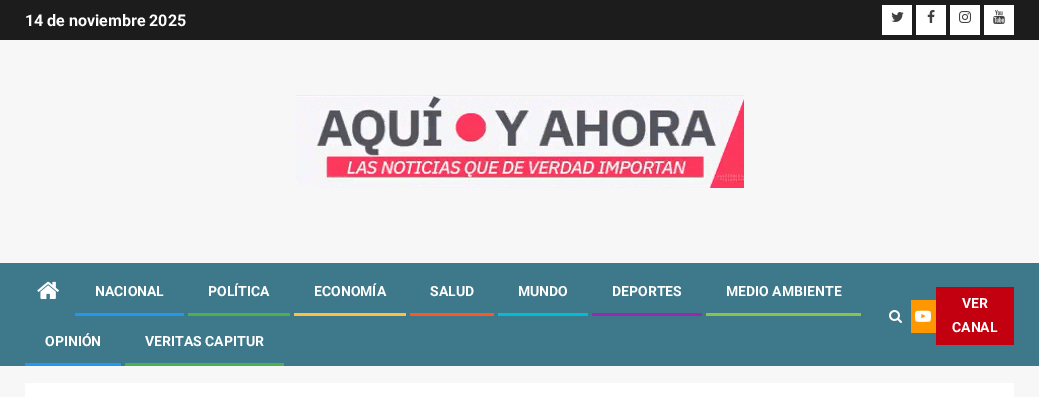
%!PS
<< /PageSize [1039 397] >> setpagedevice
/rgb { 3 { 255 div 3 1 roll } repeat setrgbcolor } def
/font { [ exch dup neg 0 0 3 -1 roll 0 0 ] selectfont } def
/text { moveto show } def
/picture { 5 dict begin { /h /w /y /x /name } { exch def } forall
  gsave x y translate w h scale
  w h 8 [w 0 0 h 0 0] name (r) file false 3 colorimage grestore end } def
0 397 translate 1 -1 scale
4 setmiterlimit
247 247 247 rgb
0 0 1039 397 rectfill
28 28 28 rgb
0 0 1039 40 rectfill
255 255 255 rgb
882 5 30 30 rectfill
(img_01.rgb) 891 12 13 10 picture
916 5 30 30 rectfill
(img_02.rgb) 927 10 8 13 picture
950 5 30 30 rectfill
(img_03.rgb) 959 11 12 12 picture
984 5 30 30 rectfill
(img_04.rgb) 993 10 12 14 picture
(img_05.rgb) 296 95 448 93 picture
62 121 139 rgb
0 263 1039 103 rectfill
(img_06.rgb) 37 281 22 18 picture
33 150 243 rgb
75 313 109 3 rectfill
76 175 80 rgb
188 313 102 3 rectfill
255 191 63 rgb
294 313 112 3 rectfill
255 87 34 rgb
410 313 84 3 rectfill
0 188 212 rgb
498 313 90 3 rectfill
156 39 176 rgb
592 313 110 3 rectfill
139 195 74 rgb
706 313 155 3 rectfill
33 150 243 rgb
25 363 96 3 rectfill
76 175 80 rgb
125 363 159 3 rectfill
(img_07.rgb) 889 310 13 13 picture
255 152 0 rgb
911 300 25 33 rectfill
(img_08.rgb) 915 310 16 12 picture
195 0 16 rgb
936 287 78 58 rectfill
255 255 255 rgb
25 383 989 14 rectfill
/Roboto-Bold 16 font
(14 de noviembre 2025) 25 26 text
/Roboto-Bold 14 font
(NACIONAL) 95 296 text
(POLÍTICA) 208 296 text
(ECONOMÍA) 314 296 text
(SALUD) 430 296 text
(MUNDO) 518 296 text
(DEPORTES) 612 296 text
(MEDIO AMBIENTE) 726 296 text
(OPINIÓN) 45 346 text
(VERITAS CAPITUR) 145 346 text
(VER) 962 308 text
(CANAL) 952 332 text
showpage
